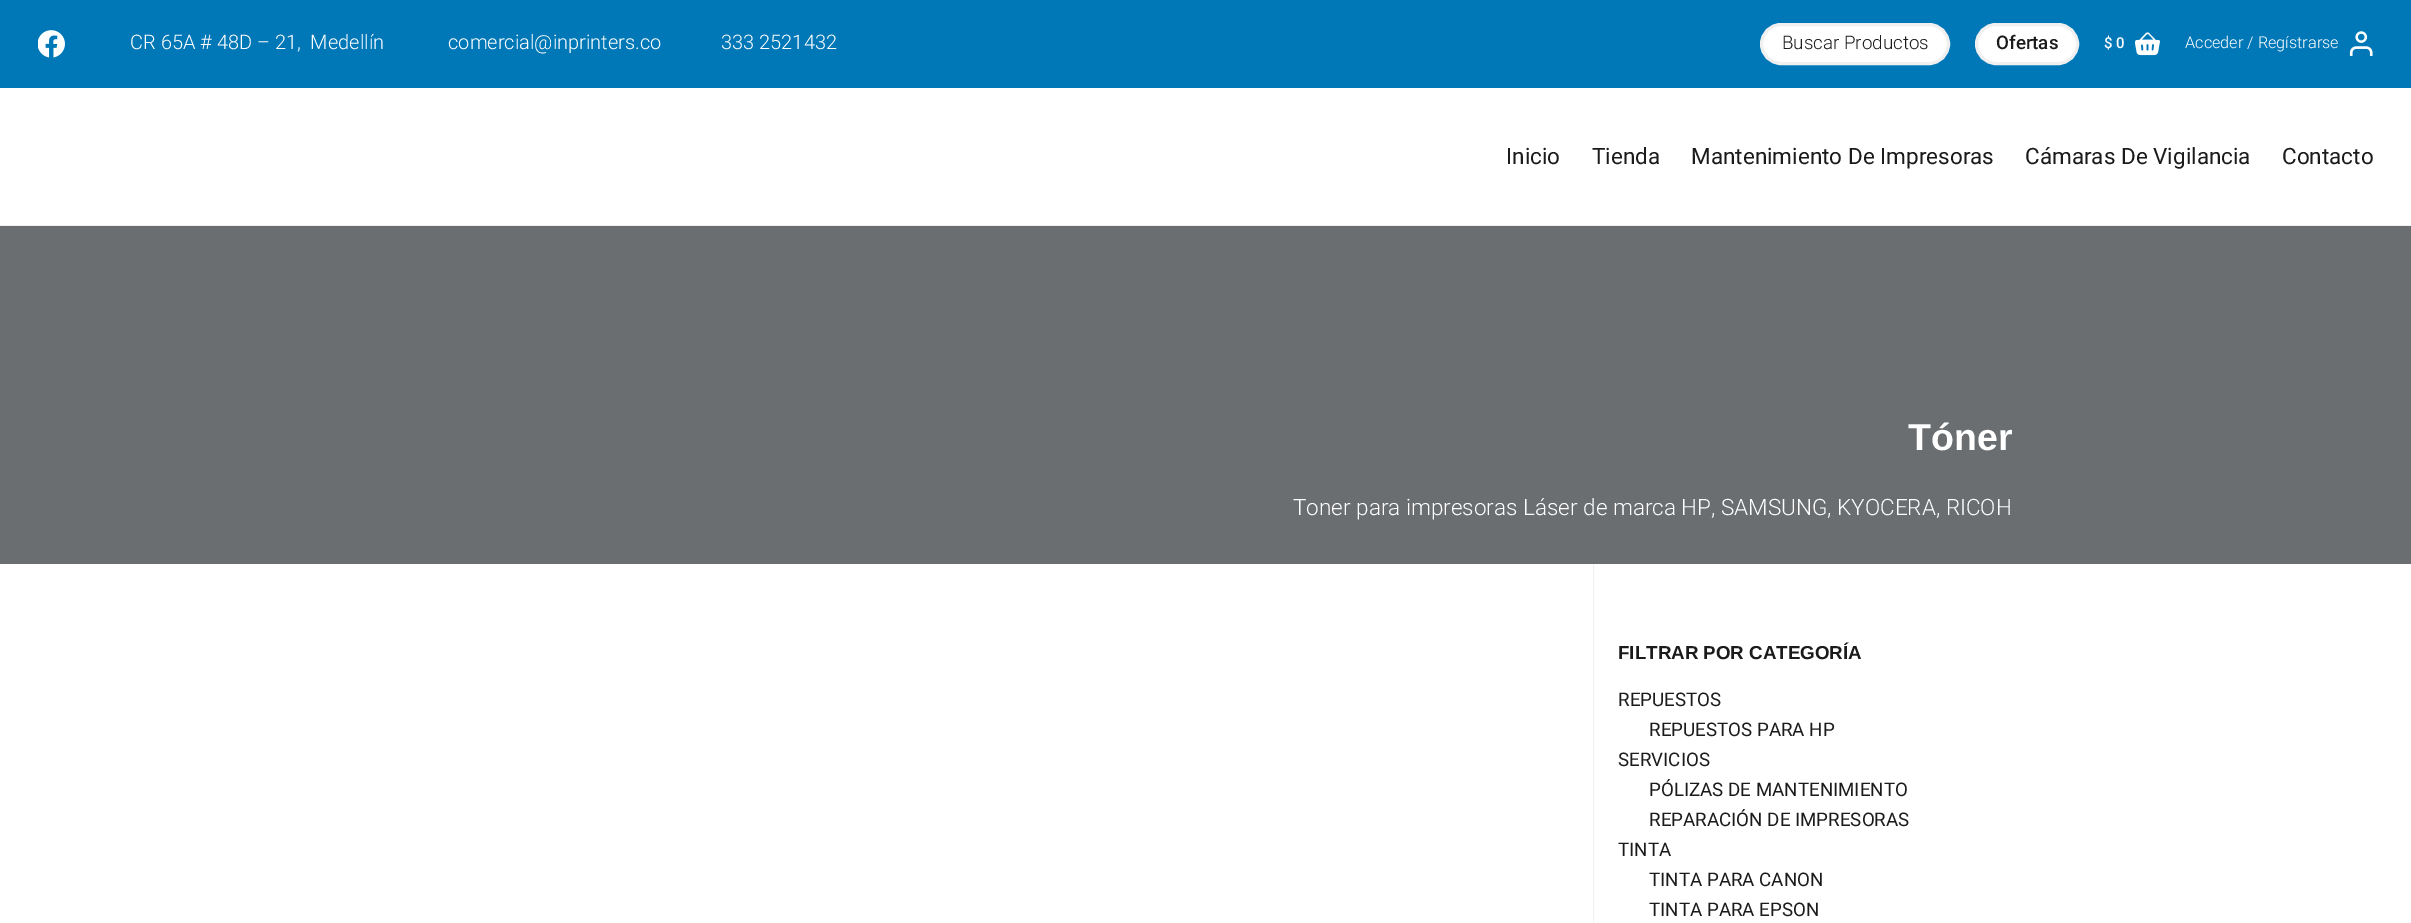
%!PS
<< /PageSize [2411 923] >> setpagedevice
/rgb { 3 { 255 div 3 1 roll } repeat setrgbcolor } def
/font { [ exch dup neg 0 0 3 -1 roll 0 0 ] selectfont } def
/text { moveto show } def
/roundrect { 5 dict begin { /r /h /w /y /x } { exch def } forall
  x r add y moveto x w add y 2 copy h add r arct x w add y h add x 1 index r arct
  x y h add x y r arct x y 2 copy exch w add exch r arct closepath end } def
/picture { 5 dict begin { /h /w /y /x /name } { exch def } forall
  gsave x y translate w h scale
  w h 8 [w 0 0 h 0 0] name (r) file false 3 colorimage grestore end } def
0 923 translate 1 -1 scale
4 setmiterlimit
255 255 255 rgb
0 0 2411 923 rectfill
0 119 182 rgb
0 0 2411 88 rectfill
(img_01.rgb) 38 30 27 28 picture
255 255 255 rgb
1761.5 24.5 187 39 19.5 roundrect gsave fill grestore
240 240 241 rgb
3 setlinewidth
stroke
255 255 255 rgb
1976.5 24.5 101 39 19.5 roundrect gsave fill grestore
240 240 241 rgb
stroke
(img_02.rgb) 2135 32 25 24 picture
(img_03.rgb) 2349 31 24 25 picture
0 225 2411 1 rectfill
107 110 113 rgb
0 226 2411 338 rectfill
240 240 241 rgb
1593 564 1 359 rectfill
/Roboto-Light 20 font
255 255 255 rgb
(CR 65A # 48D – 21,  Medellín) 130 49 text
(comercial@inprinters.co) 448 49 text
(333 2521432) 721 49 text
/Roboto-Light 18.75 font
27 27 27 rgb
(Buscar Productos) 1782 49 text
/Roboto-Medium 18.75 font
(Ofertas) 1996 49 text
/Roboto-Medium 15 font
255 255 255 rgb
($ 0) 2104 48 text
/Roboto-Light 16.25 font
(Acceder / Regístrarse) 2185 48 text
/Roboto-Regular 22.5 font
27 27 27 rgb
(Inicio) 1506 164 text
(Tienda) 1592 164 text
(Mantenimiento De Impresoras) 1691 164 text
(Cámaras De Vigilancia) 2025 164 text
(Contacto) 2282 164 text
/LiberationSans-Bold 37.5 font
255 255 255 rgb
(Tóner) 1908 450 text
/Roboto-Light 22.5 font
(Toner para impresoras Láser de marca HP, SAMSUNG, KYOCERA, RICOH) 1293 515 text
/LiberationSans-Bold 18.75 font
27 27 27 rgb
(FILTRAR POR CATEGORÍA) 1618 659 text
/Roboto-Regular 18.75 font
(REPUESTOS) 1618 706 text
(REPUESTOS PARA HP) 1649 736 text
(SERVICIOS) 1618 766 text
(PÓLIZAS DE MANTENIMIENTO) 1649 796 text
(REPARACIÓN DE IMPRESORAS) 1649 826 text
(TINTA) 1618 856 text
(TINTA PARA CANON) 1649 886 text
(TINTA PARA EPSON) 1649 916 text
showpage
